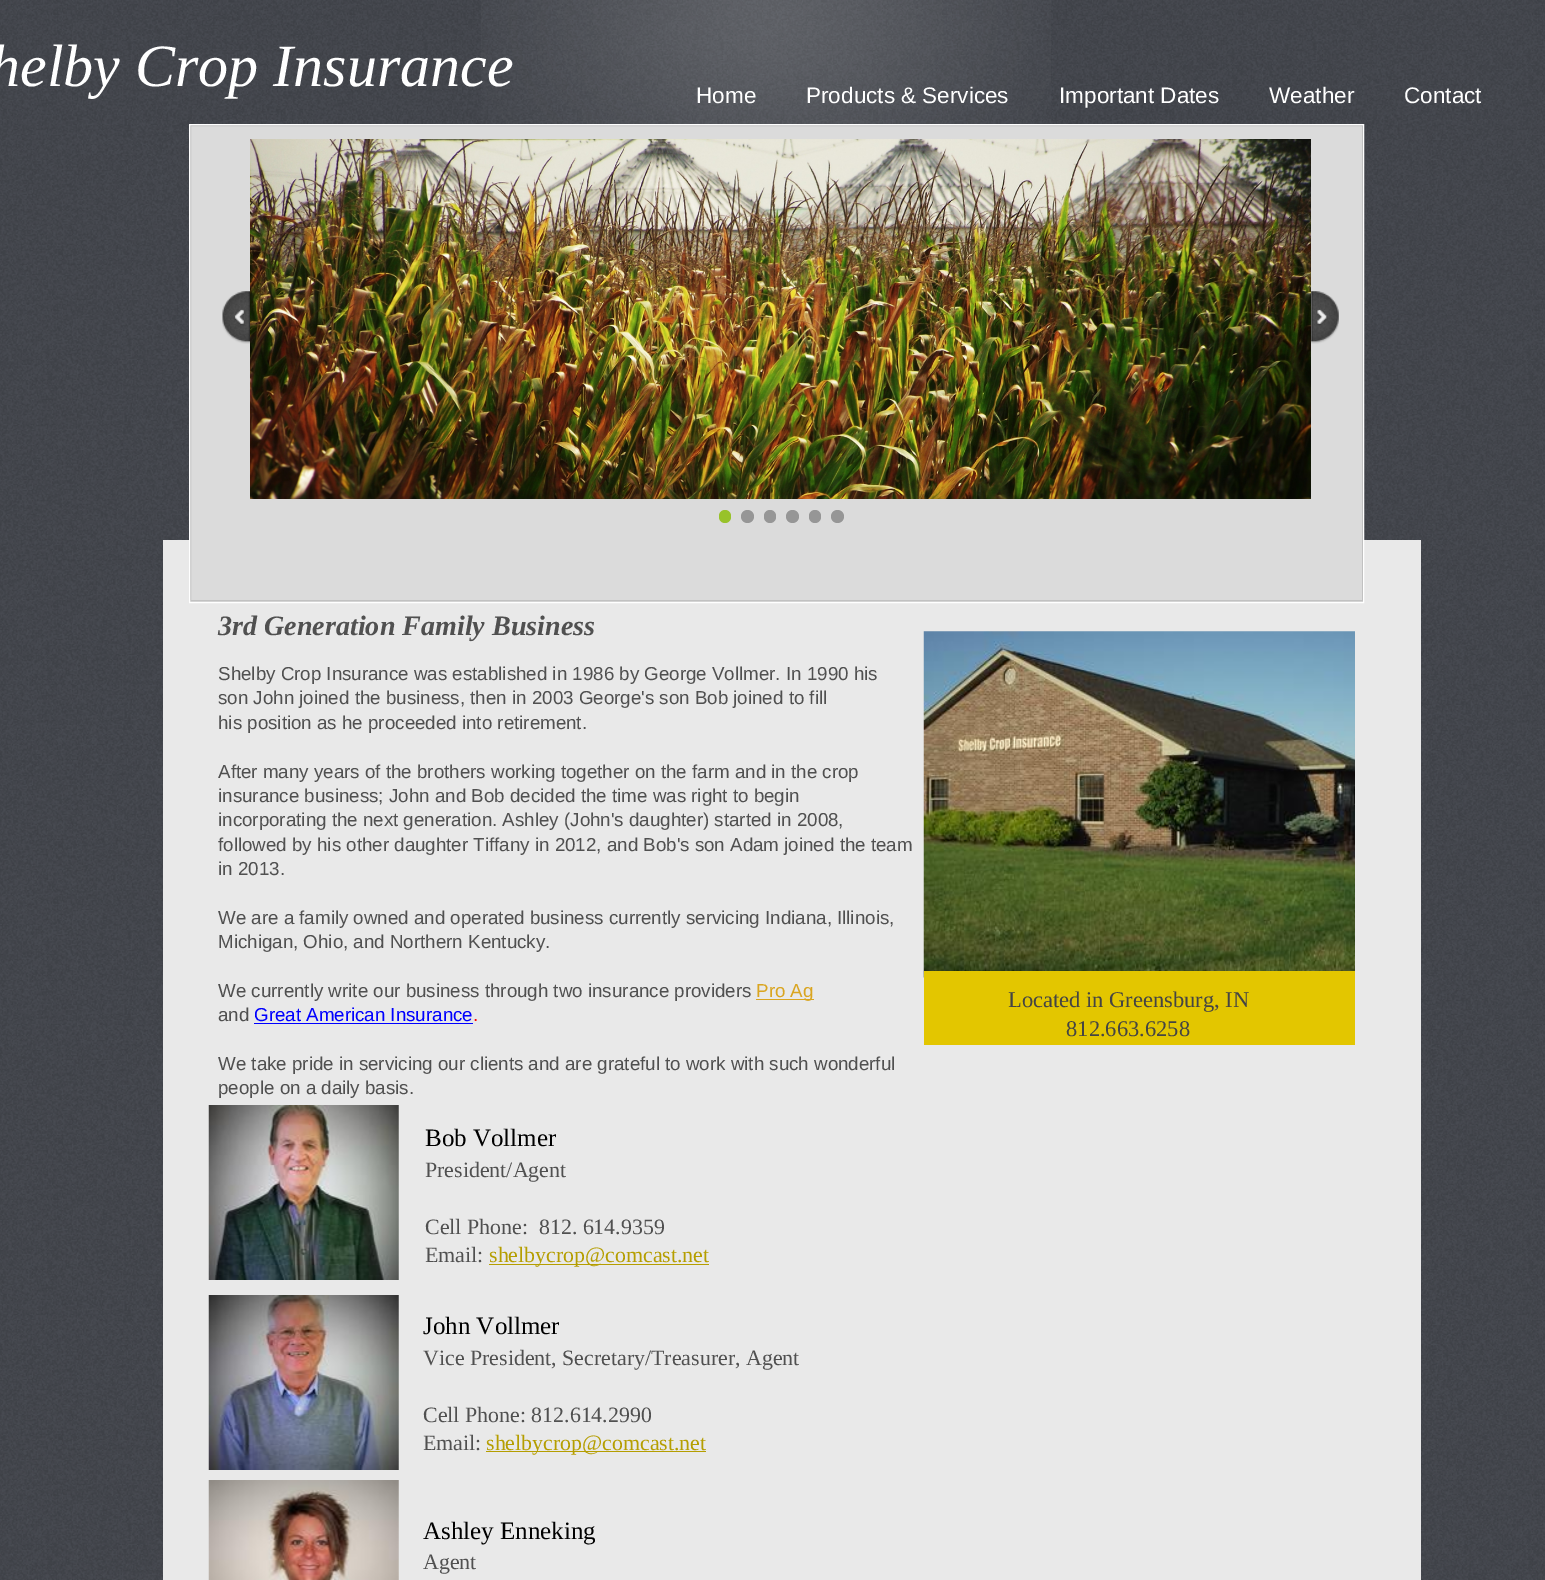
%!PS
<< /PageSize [1545 1580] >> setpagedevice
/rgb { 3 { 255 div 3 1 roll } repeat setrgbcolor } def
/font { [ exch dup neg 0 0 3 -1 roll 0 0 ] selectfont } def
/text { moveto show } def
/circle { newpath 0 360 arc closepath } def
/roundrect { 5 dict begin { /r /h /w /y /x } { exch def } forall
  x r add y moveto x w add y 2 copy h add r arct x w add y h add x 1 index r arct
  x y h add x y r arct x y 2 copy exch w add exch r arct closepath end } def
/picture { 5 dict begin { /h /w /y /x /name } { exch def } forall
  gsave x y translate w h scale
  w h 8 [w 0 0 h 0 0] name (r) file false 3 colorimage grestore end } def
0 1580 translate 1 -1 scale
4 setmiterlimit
255 255 255 rgb
0 0 1545 1580 rectfill
(img_01.rgb) 0 0 1545 1580 picture
(img_02.rgb) 481 0 570 124 picture
233 233 233 rgb
163 540 1258 1040 rectfill
219 219 219 rgb
190 126 1173 476 rectfill
193 193 193 rgb
190.5 125.5 1172 475 rectstroke
255 255 255 rgb
189.5 124.5 1174 478 rectstroke
(img_03.rgb) 222 291 28 53 picture
(img_04.rgb) 250 139 1061 360 picture
(img_05.rgb) 1311 291 28 53 picture
152 194 42 rgb
719 510 12 13 6 roundrect fill
150 150 150 rgb
747.5 516.5 6.5 circle fill
764 510 12 13 6 roundrect fill
792.5 516.5 6.5 circle fill
809 510 12 13 6 roundrect fill
837.5 516.5 6.5 circle fill
(img_06.rgb) 923 631 432 347 picture
218 165 32 rgb
756 999 58 1 rectfill
0 0 255 rgb
254 1023 219 1 rectfill
227 198 0 rgb
924 971 431 74 rectfill
(img_07.rgb) 208 1105 191 175 picture
181 158 0 rgb
489 1264 220 1 rectfill
(img_08.rgb) 208 1295 191 175 picture
486 1451 220 1 rectfill
(img_09.rgb) 208 1480 191 100 picture
/LiberationSerif-Italic 60 font
255 255 255 rgb
(helby Crop Insurance) -10 86 text
/LiberationSans-Regular 22.5 font
(Home) 696 103 text
(Products & Services) 806 103 text
(Important Dates) 1059 103 text
(Weather) 1269 103 text
(Contact) 1404 103 text
/LiberationSerif-BoldItalic 28.1 font
80 80 80 rgb
(3rd Generation Family Business) 218 635 text
/LiberationSans-Regular 18.75 font
(Shelby Crop Insurance was established in 1986 by George Vollmer. In 1990 his) 218 680 text
(son John joined the business, then in 2003 George's son Bob joined to fill) 218 704 text
(his position as he proceeded into retirement.) 218 729 text
(After many years of the brothers working together on the farm and in the crop) 218 778 text
(insurance business; John and Bob decided the time was right to begin) 218 802 text
(incorporating the next generation. Ashley \(John's daughter\) started in 2008,) 218 826 text
(followed by his other daughter Tiffany in 2012, and Bob's son Adam joined the team) 218 851 text
(in 2013.) 218 875 text
(We are a family owned and operated business currently servicing Indiana, Illinois,) 218 924 text
(Michigan, Ohio, and Northern Kentucky.) 218 948 text
(We currently write our business through two insurance providers) 218 997 text
218 165 32 rgb
(Pro Ag) 756 997 text
80 80 80 rgb
(and) 218 1021 text
0 0 255 rgb
(Great American Insurance) 254 1021 text
255 0 0 rgb
(.) 473 1021 text
80 80 80 rgb
(We take pride in servicing our clients and are grateful to work with such wonderful) 218 1070 text
(people on a daily basis.) 218 1094 text
/LiberationSerif-Regular 22.5 font
68 68 68 rgb
(Located in Greensburg, IN) 1008 1007 text
(812.663.6258) 1066 1036 text
/LiberationSerif-Regular 25 font
0 0 0 rgb
(Bob Vollmer) 425 1146 text
/LiberationSerif-Regular 21.9 font
80 80 80 rgb
(President/Agent) 425 1177 text
(Cell Phone:  812. 614.9359) 425 1234 text
(Email:) 425 1262 text
181 158 0 rgb
(shelbycrop@comcast.net) 489 1262 text
/LiberationSerif-Regular 25 font
0 0 0 rgb
(John Vollmer) 423 1334 text
/LiberationSerif-Regular 21.9 font
80 80 80 rgb
(Vice President, Secretary/Treasurer, Agent) 423 1365 text
(Cell Phone: 812.614.2990) 423 1422 text
(Email:) 423 1450 text
181 158 0 rgb
(shelbycrop@comcast.net) 486 1450 text
/LiberationSerif-Regular 25 font
0 0 0 rgb
(Ashley Enneking) 423 1539 text
/LiberationSerif-Regular 21.9 font
80 80 80 rgb
(Agent) 423 1569 text
showpage
